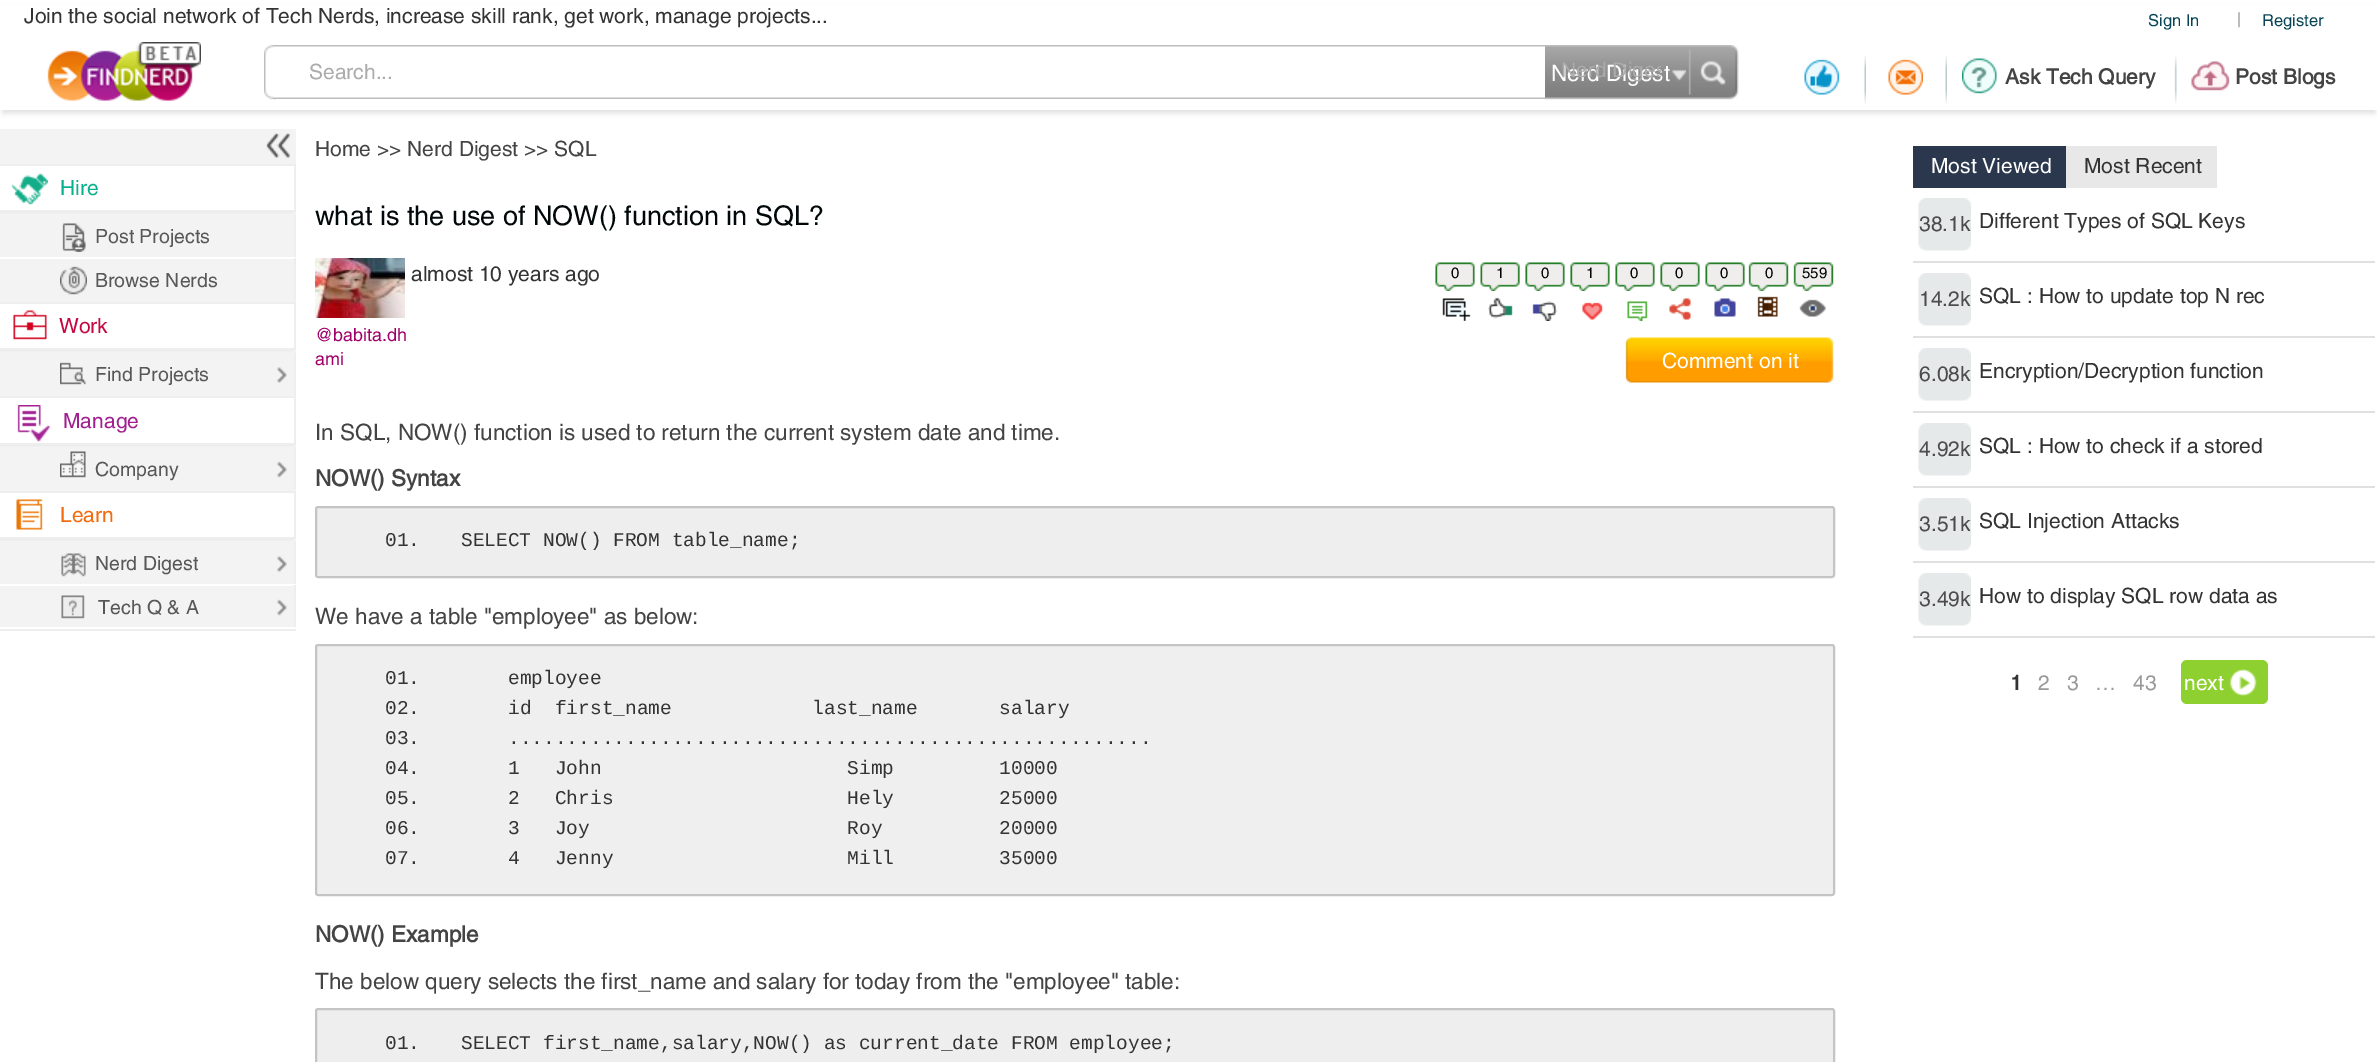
%!PS
<< /PageSize [2377 1062] /PageUsesTransparency true >> setpagedevice
/rgb { 3 { 255 div 3 1 roll } repeat setrgbcolor } def
/font { [ exch dup neg 0 0 3 -1 roll 0 0 ] selectfont } def
/text { moveto show } def
/alpha { dup .setfillconstantalpha .setstrokeconstantalpha } def
/roundrect { 5 dict begin { /r /h /w /y /x } { exch def } forall
  x r add y moveto x w add y 2 copy h add r arct x w add y h add x 1 index r arct
  x y h add x y r arct x y 2 copy exch w add exch r arct closepath end } def
/shadow { 12 dict begin { /a /b /q /h /w /y /x } { exch def } forall gsave /was 0 def
  9 -2 -9 { dup b mul 4 div /e exch def 1 sub .425 mul 2.718 exch exp 1 add a .99 .min exch div /now exch def
    1 1 now sub 1 was sub div sub alpha /was now def
    w h .min e 2 mul add 0 gt { x e sub y e sub w e 2 mul add h e 2 mul add
      q e add b .6 mul add w h .min 2 div e add .min 0 .max roundrect fill } if } for grestore end } def
/picture { 5 dict begin { /h /w /y /x /name } { exch def } forall
  gsave x y translate w h scale
  w h 8 [w 0 0 h 0 0] name (r) file false 3 colorimage grestore end } def
0 .pushpdf14devicefilter
0 1062 translate 1 -1 scale
4 setmiterlimit
255 255 255 rgb
0 0 2377 1062 rectfill
221 221 221 rgb
3 9 2372 104 0 3 1 shadow
255 255 255 rgb
0 5 2377 105 rectfill
(img_01.rgb) 47 42 154 59 picture
(img_03.rgb) 272 45 1458 54 picture
(img_02.rgb) 264 45 12 55 picture
(img_04.rgb) 1545 45 194 55 picture
(img_05.rgb) 1672 69 14 12 picture
(img_06.rgb) 1700 60 26 25 picture
(img_07.rgb) 1804 59 36 36 picture
(img_08.rgb) 1864 55 2 49 picture
(img_09.rgb) 1888 59 35 36 picture
(img_08.rgb) 1945 55 2 49 picture
(img_10.rgb) 1962 58 35 36 picture
(img_11.rgb) 2174 55 3 49 picture
(img_12.rgb) 2191 61 39 30 picture
243 243 243 rgb
0 129 296 498 rectfill
238 238 238 rgb
0 629 296 2 rectfill
(img_13.rgb) 266 133 24 25 picture
221 221 221 rgb
-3 165 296 48 0 1 0.5 shadow
255 255 255 rgb
0 166 294 44 rectfill
238 238 238 rgb
0 164 296 2 rectfill
294 164 2 48 rectfill
0 210 296 2 rectfill
(img_14.rgb) 11 173 37 32 picture
294 215 2 43 rectfill
255 255 255 rgb
0 257 296 2 rectfill
(img_15.rgb) 62 223 24 29 picture
238 238 238 rgb
294 258 2 44 rectfill
243 243 243 rgb
294 300 2 2 rectfill
(img_16.rgb) 60 266 27 29 picture
221 221 221 rgb
-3 303 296 48 0 1 0.5 shadow
255 255 255 rgb
0 304 294 44 rectfill
238 238 238 rgb
0 302 296 2 rectfill
294 302 2 48 rectfill
0 348 296 2 rectfill
(img_17.rgb) 13 310 34 30 picture
294 353 2 43 rectfill
243 243 243 rgb
294 395 2 1 rectfill
(img_18.rgb) 60 362 26 23 picture
(img_19.rgb) 277 367 10 16 picture
221 221 221 rgb
-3 398 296 48 0 1 0.5 shadow
255 255 255 rgb
0 398 294 45 rectfill
238 238 238 rgb
0 396 296 2 rectfill
294 396 2 48 rectfill
0 443 296 2 rectfill
(img_20.rgb) 17 405 33 37 picture
294 447 2 44 rectfill
243 243 243 rgb
294 489 2 2 rectfill
(img_21.rgb) 60 451 26 27 picture
(img_22.rgb) 277 461 10 17 picture
221 221 221 rgb
-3 492 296 48 0 1 0.5 shadow
255 255 255 rgb
0 493 294 44 rectfill
238 238 238 rgb
0 491 296 2 rectfill
294 491 2 48 rectfill
0 537 296 2 rectfill
(img_23.rgb) 16 498 27 32 picture
294 542 2 43 rectfill
255 255 255 rgb
0 584 296 2 rectfill
(img_24.rgb) 61 553 25 24 picture
(img_19.rgb) 277 556 10 16 picture
238 238 238 rgb
294 585 2 44 rectfill
255 255 255 rgb
294 627 2 2 rectfill
(img_25.rgb) 61 595 24 24 picture
(img_22.rgb) 277 599 10 17 picture
(img_26.rgb) 315 258 90 60 picture
(img_27.rgb) 1435 262 40 29 picture
(img_28.rgb) 1442 298 29 23 picture
(img_29.rgb) 1480 262 40 29 picture
(img_30.rgb) 1488 297 25 22 picture
(img_27.rgb) 1525 262 40 29 picture
(img_31.rgb) 1532 301 26 20 picture
(img_27.rgb) 1570 262 40 29 picture
(img_32.rgb) 1582 302 21 18 picture
(img_27.rgb) 1615 262 40 29 picture
(img_33.rgb) 1627 301 21 20 picture
(img_27.rgb) 1660 262 40 29 picture
(img_34.rgb) 1669 298 22 22 picture
(img_27.rgb) 1705 262 40 29 picture
(img_35.rgb) 1714 298 22 19 picture
(img_36.rgb) 1748 262 41 29 picture
(img_37.rgb) 1757 296 21 21 picture
(img_36.rgb) 1793 262 41 29 picture
(img_38.rgb) 1799 299 27 18 picture
(img_39.rgb) 1625 337 209 46 picture
238 238 238 rgb
316 507 1518 70 2 roundrect gsave fill grestore
196 196 196 rgb
2 setlinewidth
stroke
239 239 239 rgb
316 645 1518 250 2 roundrect gsave fill grestore
196 196 196 rgb
stroke
238 238 238 rgb
316 1009 1518 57 2 roundrect gsave fill grestore
196 196 196 rgb
stroke
42 55 76 rgb
1913 146 153 42 rectfill
232 232 232 rgb
2066 146 151 42 rectfill
224 224 224 rgb
1913 261 462 2 rectfill
(img_40.rgb) 1918 198 53 53 picture
1913 336 462 2 rectfill
(img_40.rgb) 1918 273 53 53 picture
1913 411 462 2 rectfill
(img_40.rgb) 1918 348 53 53 picture
1913 486 462 2 rectfill
(img_40.rgb) 1918 423 53 53 picture
1913 561 462 2 rectfill
(img_40.rgb) 1918 498 53 53 picture
1913 636 462 2 rectfill
(img_40.rgb) 1918 573 53 53 picture
142 208 47 rgb
2181 660 87 44 6 roundrect fill
(img_41.rgb) 2230 669 27 27 picture
/Helvetica-Regular 21 font
51 51 51 rgb
(Join the social network of Tech Nerds, increase skill rank, get work, manage projects...) 24 23 text
/Helvetica-Regular 16.5 font
7 68 86 rgb
(Sign In) 2148 26 text
/Helvetica-Regular 15 font
130 130 130 rgb
(|) 2237 24 text
/Helvetica-Regular 16.5 font
7 68 86 rgb
(Register) 2262 26 text
/Helvetica-Regular 21 font
173 171 171 rgb
(Search...) 309 79 text
/Helvetica-Regular 22.5 font
255 255 255 rgb
(Nerd Digest) 1551 81 text
gsave
1562 56 99 27 rectclip
/LiberationSans-Regular 21 font
173 171 171 rgb
(Nerd Diges) 1561 77 text
grestore
/Helvetica-Bold 21 font
68 68 68 rgb
(Ask Tech Query) 2005 84 text
(Post Blogs) 2235 84 text
/Helvetica-Regular 21 font
10 176 142 rgb
(Hire) 60 195 text
/Helvetica-Regular 19.5 font
89 88 88 rgb
(Post Projects) 95 243 text
(Browse Nerds) 95 287 text
/Helvetica-Regular 21 font
196 8 66 rgb
(Work) 59 333 text
/Helvetica-Regular 19.5 font
89 88 88 rgb
(Find Projects) 95 381 text
/Helvetica-Regular 21 font
161 32 144 rgb
(Manage) 63 428 text
/Helvetica-Regular 19.5 font
89 88 88 rgb
(Company) 95 476 text
/Helvetica-Regular 21 font
243 107 15 rgb
(Learn) 60 522 text
/Helvetica-Regular 19.5 font
89 88 88 rgb
(Nerd Digest) 95 570 text
(Tech Q & A) 98 614 text
/Helvetica-Regular 21 font
68 68 68 rgb
(Home >> Nerd Digest >> SQL) 315 156 text
/Helvetica-Regular 27 font
1 8 10 rgb
(what is the use of NOW\(\) function in SQL?) 315 225 text
/Helvetica-Regular 21 font
51 51 51 rgb
(almost 10 years ago) 411 281 text
/Helvetica-Regular 18 font
161 0 107 rgb
(@babita.dh) 315 341 text
(ami) 315 365 text
/Helvetica-Regular 15 font
0 0 0 rgb
(0) 1451 278 text
(1) 1496 278 text
(0) 1541 278 text
(1) 1586 278 text
(0) 1630 278 text
(0) 1675 278 text
(0) 1720 278 text
(0) 1765 278 text
(559) 1802 278 text
/Helvetica-Regular 21 font
255 255 255 rgb
(Comment on it) 1662 368 text
/Helvetica-Regular 22.5 font
68 68 68 rgb
(In SQL, NOW\(\) function is used to return the current system date and time.) 315 440 text
/Helvetica-Bold 22.5 font
(NOW\(\) Syntax) 315 486 text
/LiberationMono-Regular 19.5 font
51 51 51 rgb
(01.) 385 546 text
(SELECT NOW\(\) FROM table_name;) 461 546 text
/Helvetica-Regular 22.5 font
68 68 68 rgb
(We have a table "employee" as below:) 315 624 text
/LiberationMono-Regular 19.5 font
51 51 51 rgb
(01.) 385 684 text
(employee) 508 684 text
(02.) 385 714 text
(id  first_name            last_name       salary) 508 714 text
(03.) 385 744 text
(.......................................................) 508 744 text
(04.) 385 774 text
(1   John                     Simp         10000) 508 774 text
(05.) 385 804 text
(2   Chris                    Hely         25000) 508 804 text
(06.) 385 834 text
(3   Joy                      Roy          20000) 508 834 text
(07.) 385 864 text
(4   Jenny                    Mill         35000) 508 864 text
/Helvetica-Bold 22.5 font
68 68 68 rgb
(NOW\(\) Example) 315 942 text
/Helvetica-Regular 22.5 font
(The below query selects the first_name and salary for today from the "employee" table:) 315 989 text
/LiberationMono-Regular 19.5 font
51 51 51 rgb
(01.) 385 1049 text
(SELECT first_name,salary,NOW\(\) as current_date FROM employee;) 461 1049 text
/Helvetica-Regular 21 font
255 255 255 rgb
(Most Viewed) 1931 173 text
51 51 51 rgb
(Most Recent) 2084 173 text
76 76 76 rgb
(38.1k) 1919 231 text
51 51 51 rgb
(Different Types of SQL Keys) 1979 228 text
76 76 76 rgb
(14.2k) 1919 306 text
51 51 51 rgb
(SQL : How to update top N rec) 1979 303 text
76 76 76 rgb
(6.08k) 1919 381 text
51 51 51 rgb
(Encryption/Decryption function) 1979 378 text
76 76 76 rgb
(4.92k) 1919 456 text
51 51 51 rgb
(SQL : How to check if a stored) 1979 453 text
76 76 76 rgb
(3.51k) 1919 531 text
51 51 51 rgb
(SQL Injection Attacks) 1979 528 text
76 76 76 rgb
(3.49k) 1919 606 text
51 51 51 rgb
(How to display SQL row data as) 1979 603 text
/Helvetica-Bold 21 font
(1) 2010 690 text
/Helvetica-Regular 21 font
153 153 153 rgb
(2) 2038 690 text
(3) 2067 690 text
(…) 2095 690 text
(43) 2133 690 text
255 255 255 rgb
(next) 2184 690 text
.poppdf14devicefilter showpage
